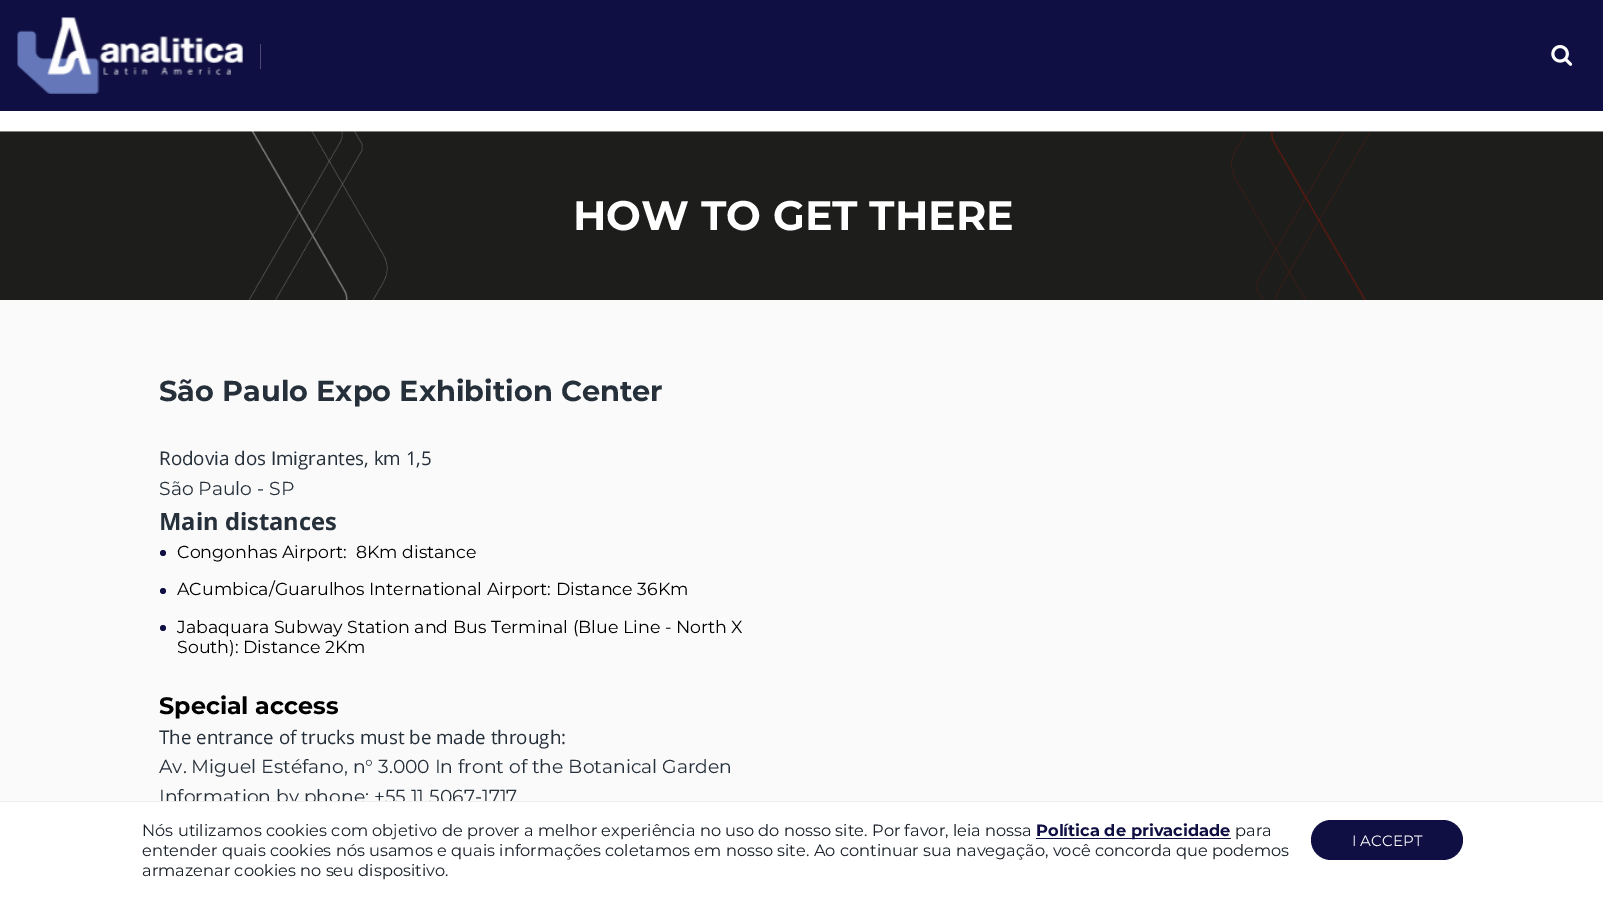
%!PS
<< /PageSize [1603 897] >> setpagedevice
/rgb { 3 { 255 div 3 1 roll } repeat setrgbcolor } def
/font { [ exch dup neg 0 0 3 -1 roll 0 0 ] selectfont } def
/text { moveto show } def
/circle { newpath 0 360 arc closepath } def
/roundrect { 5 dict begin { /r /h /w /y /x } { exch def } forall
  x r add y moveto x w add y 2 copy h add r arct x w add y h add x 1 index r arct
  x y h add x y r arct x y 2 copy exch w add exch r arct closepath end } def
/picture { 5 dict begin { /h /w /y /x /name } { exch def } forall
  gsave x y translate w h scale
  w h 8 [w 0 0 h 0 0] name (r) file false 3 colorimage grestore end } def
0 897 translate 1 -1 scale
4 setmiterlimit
255 255 255 rgb
0 0 1603 897 rectfill
15 15 67 rgb
0 0 1603 111 rectfill
(img_01.rgb) 17 17 226 77 picture
75 75 114 rgb
260 44 1 25 rectfill
(img_02.rgb) 1551 45 22 21 picture
(img_03.rgb) 0 131 1603 169 picture
250 250 250 rgb
0 300 1603 501 rectfill
15 15 67 rgb
163 553 3 circle fill
163 591 3 circle fill
163 628 3 circle fill
1036 838 195 1 rectfill
1311 820 152 40 20 roundrect fill
/Montserrat-Bold 41.25 font
255 255 255 rgb
(HOW TO GET THERE) 573 230 text
/Montserrat-Bold 28.75 font
38 48 58 rgb
(São Paulo Expo Exhibition Center) 159 401 text
/OpenSans-Regular 18.75 font
(Rodovia dos Imigrantes, km 1,5) 159 465 text
/Montserrat-Regular 18.75 font
(São Paulo - SP) 159 495 text
/OpenSans-Bold 23.75 font
(Main distances) 159 530 text
/Montserrat-Regular 17.4 font
0 0 0 rgb
(Congonhas Airport:  8Km distance) 177 558 text
(ACumbica/Guarulhos International Airport: Distance 36Km) 177 595 text
(Jabaquara Subway Station and Bus Terminal \(Blue Line - North X) 177 633 text
(South\): Distance 2Km) 177 653 text
/Montserrat-Bold 23.75 font
(Special access) 159 714 text
/OpenSans-Regular 18.75 font
38 48 58 rgb
(The entrance of trucks must be made through:) 159 744 text
/Montserrat-Regular 18.75 font
(Av. Miguel Estéfano, n° 3.000 In front of the Botanical Garden) 159 773 text
(Information by phone: +55 11 5067-1717) 159 803 text
255 255 255 rgb
161 802 351 5 rectfill
238 238 238 rgb
0 801 1603 1 rectfill
/Montserrat-Regular 16.25 font
26 33 41 rgb
(Nós utilizamos cookies com objetivo de prover a melhor experiência no uso do nosso site. Por favor, leia nossa) 142 836 text
/Montserrat-Bold 16.25 font
15 15 67 rgb
(Política de privacidade) 1036 836 text
/Montserrat-Regular 16.25 font
26 33 41 rgb
(para) 1235 836 text
(entender quais cookies nós usamos e quais informações coletamos em nosso site. Ao continuar sua navegação, você concorda que podemos) 142 856 text
(armazenar cookies no seu dispositivo.) 142 876 text
/Montserrat-Regular 15 font
255 255 255 rgb
(I ACCEPT) 1352 846 text
showpage
